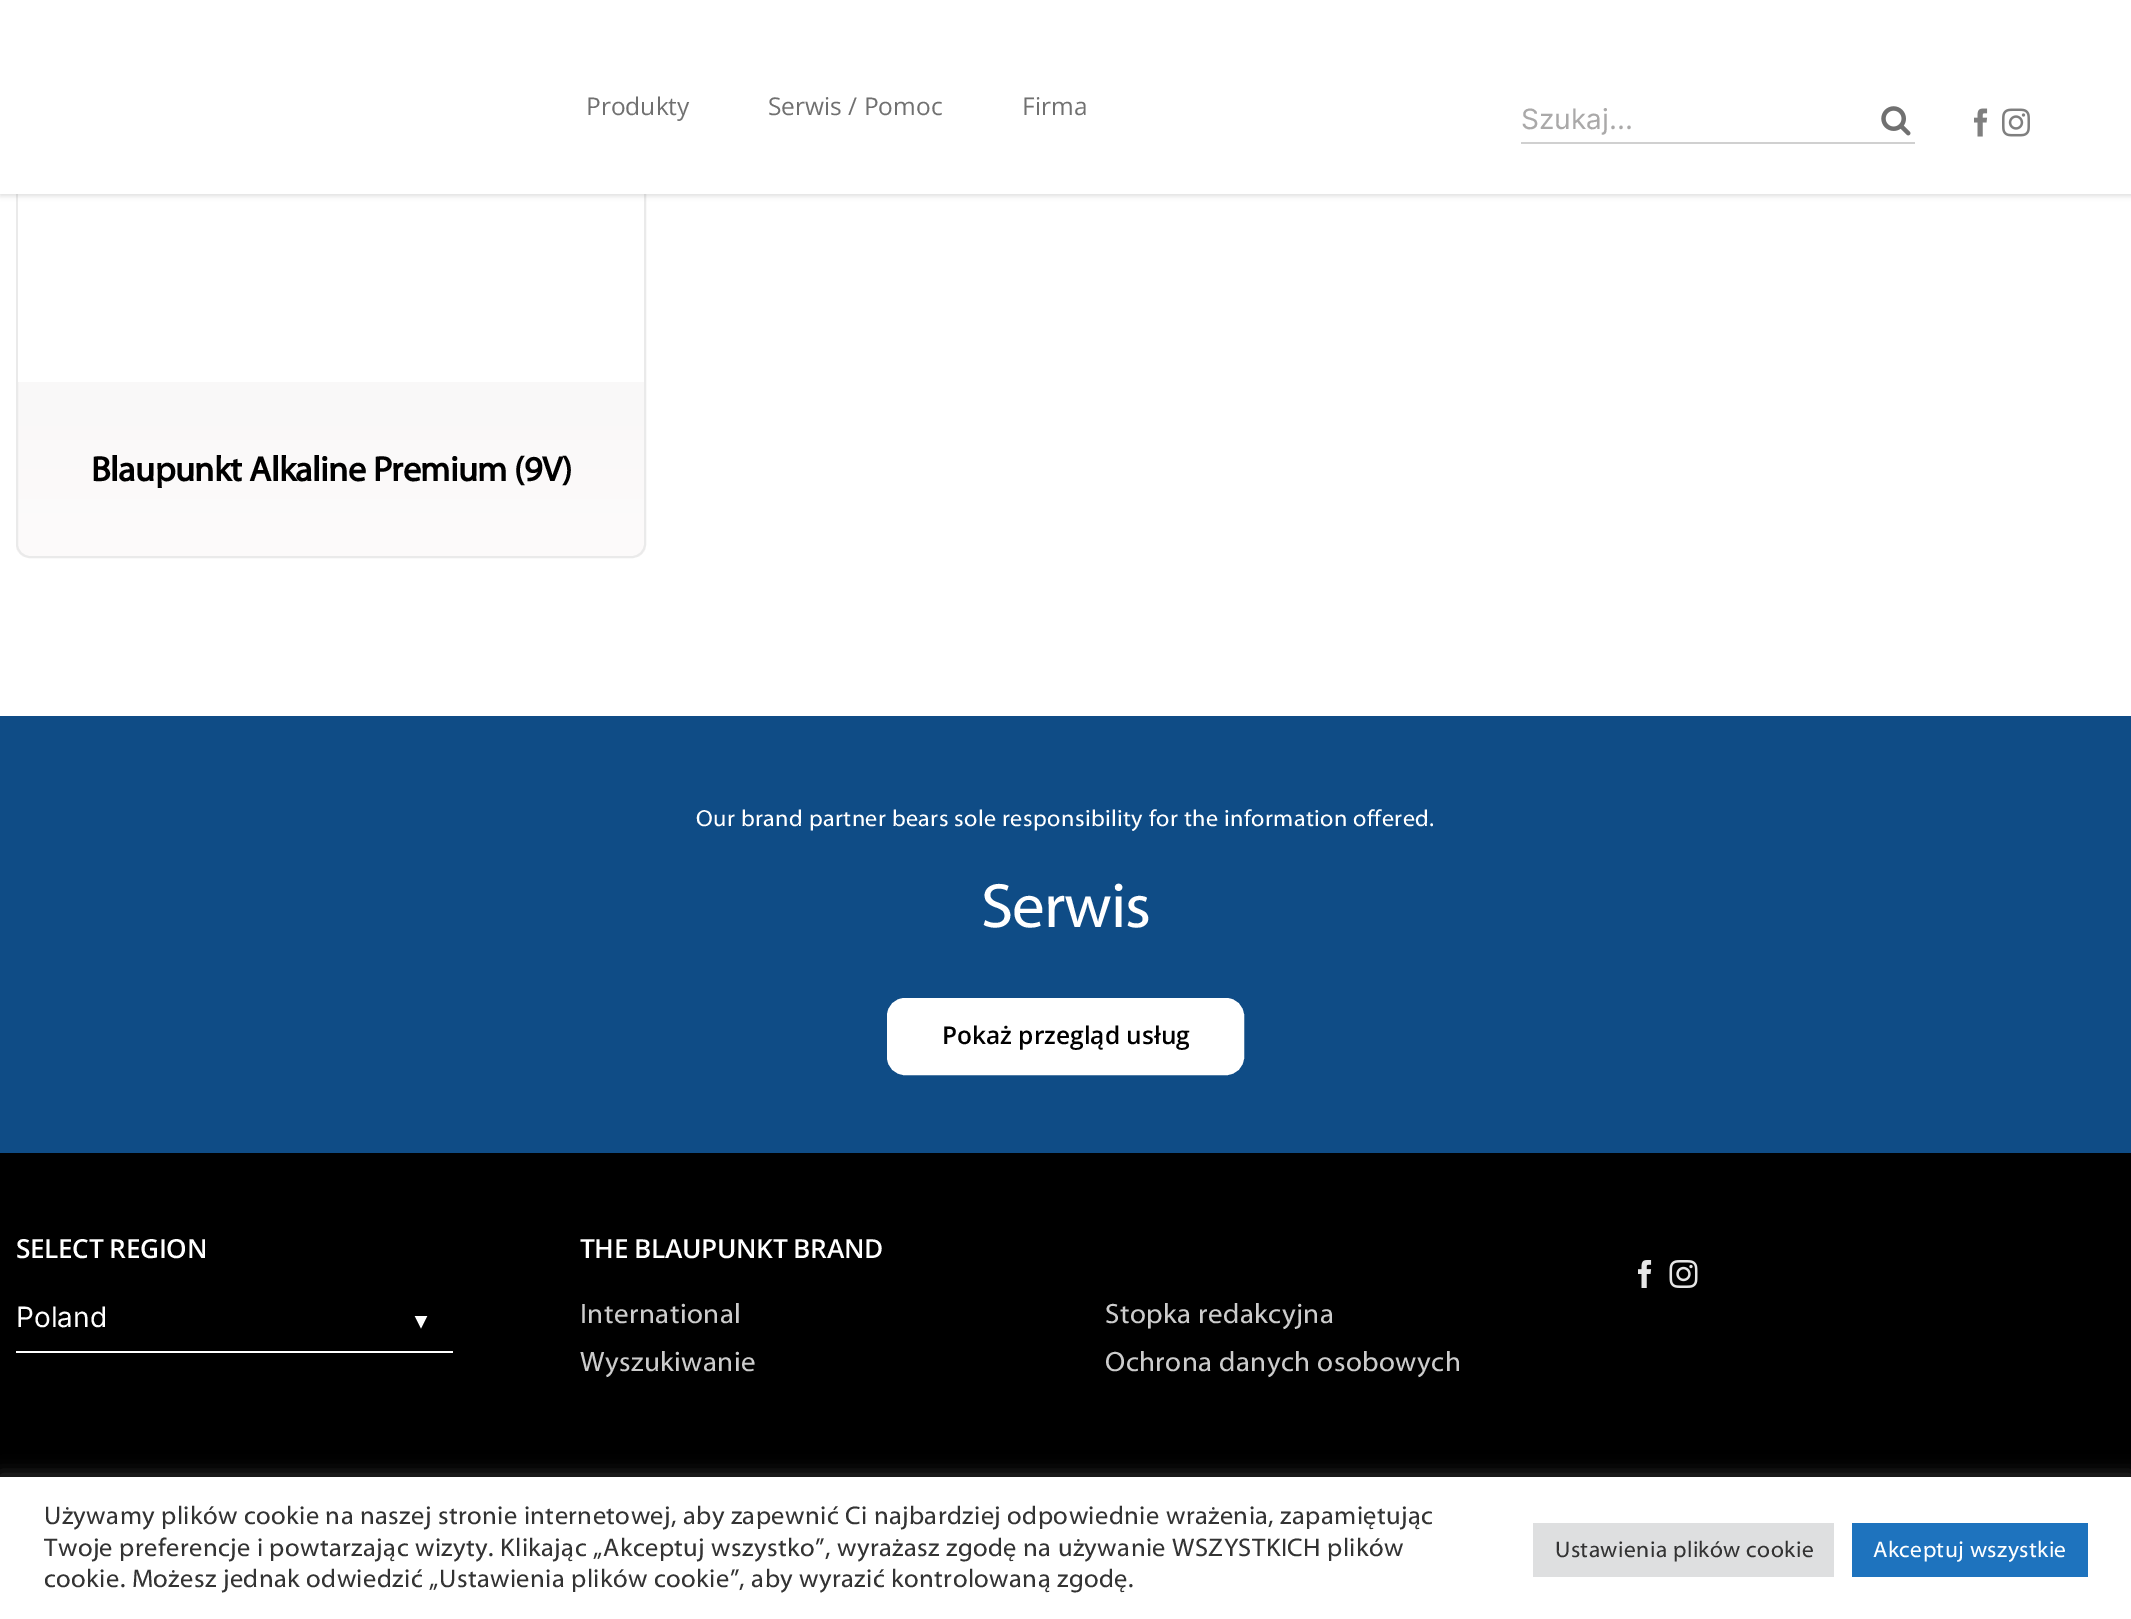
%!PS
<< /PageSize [2131 1619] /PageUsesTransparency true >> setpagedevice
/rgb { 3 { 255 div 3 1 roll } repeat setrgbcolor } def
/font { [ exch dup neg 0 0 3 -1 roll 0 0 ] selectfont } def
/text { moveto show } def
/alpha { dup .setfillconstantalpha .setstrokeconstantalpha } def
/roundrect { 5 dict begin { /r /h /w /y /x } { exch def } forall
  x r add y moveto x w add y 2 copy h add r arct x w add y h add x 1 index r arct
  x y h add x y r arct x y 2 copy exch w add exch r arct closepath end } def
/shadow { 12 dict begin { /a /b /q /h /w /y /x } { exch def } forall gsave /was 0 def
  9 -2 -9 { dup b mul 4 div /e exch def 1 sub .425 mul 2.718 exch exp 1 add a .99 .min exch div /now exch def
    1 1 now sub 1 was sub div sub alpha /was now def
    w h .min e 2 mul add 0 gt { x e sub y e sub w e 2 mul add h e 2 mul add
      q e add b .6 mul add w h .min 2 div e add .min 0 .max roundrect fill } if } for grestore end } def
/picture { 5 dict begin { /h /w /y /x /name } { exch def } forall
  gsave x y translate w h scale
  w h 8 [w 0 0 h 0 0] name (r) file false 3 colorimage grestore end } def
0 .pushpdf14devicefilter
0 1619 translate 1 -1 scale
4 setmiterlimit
255 255 255 rgb
0 0 2131 1619 rectfill
gsave
16 -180 630 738 14 roundrect clip newpath
gsave 16 382 moveto 630 0 rlineto 0 175 rlineto -630 0 rlineto closepath clip newpath
<< /ShadingType 2 /ColorSpace /DeviceRGB /Coords [331 557 331 -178] /Extend [true true] /Function << /FunctionType 2 /Domain [0 1] /C0 [0.992 0.984 0.984] /C1 [0.922 0.929 0.933] /N 1 >> >> shfill grestore
grestore
234 234 234 rgb
2 setlinewidth
17 -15 628 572 13 roundrect stroke
255 255 255 rgb
18 194 626 188 rectfill
0 0 0 rgb
0 2 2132 194 0 2.5 0.12 shadow
255 255 255 rgb
0 0 2131 194 rectfill
208 208 208 rgb
1521 142 394 2 rectfill
(img_01.rgb) 1881 106 30 30 picture
(img_02.rgb) 1974 108 14 29 picture
(img_03.rgb) 2002 108 28 29 picture
15 76 134 rgb
0 716 2131 437 rectfill
255 255 255 rgb
889 1000 353 73 16 roundrect gsave fill grestore
4 setlinewidth
stroke
0 0 0 rgb
0 1153 2131 324 rectfill
255 255 255 rgb
16 1351 437 2 rectfill
(img_04.rgb) 1638 1260 14 28 picture
(img_05.rgb) 1669 1260 29 28 picture
172 171 171 rgb
0 1475 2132 144 0 9 0.3 shadow
255 255 255 rgb
0 1477 2131 142 rectfill
222 223 224 rgb
1533 1523 301 54 rectfill
30 115 190 rgb
1852 1523 236 54 rectfill
/OpenSans-Regular 24.5 font
112 112 112 rgb
(Produkty) 586 115 text
(Serwis / Pomoc) 768 115 text
(Firma) 1022 115 text
/Inter-Regular 28 font
170 169 169 rgb
(Szukaj...) 1521 129 text
/Myriad-Bold 35 font
0 0 0 rgb
91 481 moveto -0.5 0 (Blaupunkt Alkaline Premium \(9V\)) ashow
/Myriad-Regular 23.3 font
255 255 255 rgb
696 826 moveto 0.42 0 (Our brand partner bears sole responsibility for the information offered.) ashow
/Myriad-Regular 63 font
981 927 moveto -1 0 (Serwis) ashow
/OpenSans-SemiBold 24.5 font
0 0 0 rgb
(Pokaż przegląd usług) 942 1044 text
/OpenSans-SemiBold 26.25 font
255 255 255 rgb
16 1258 moveto -0.4 0 (SELECT REGION) ashow
/Inter-Regular 28 font
(Poland) 16 1327 text
/LiberationSans-Regular 21 font
gsave 415 1312 translate 90 rotate 0 0 moveto 0.42 0 (►) ashow grestore
/OpenSans-SemiBold 26.25 font
580 1258 moveto -0.4 0 (THE BLAUPUNKT BRAND) ashow
/Myriad-Regular 28 font
204 204 204 rgb
580 1323 moveto 0.42 0 (International) ashow
580 1371 moveto 0.42 0 (Wyszukiwanie) ashow
1105 1323 moveto 0.42 0 (Stopka redakcyjna) ashow
1105 1371 moveto 0.42 0 (Ochrona danych osobowych) ashow
/Myriad-Regular 25.67 font
51 51 51 rgb
44 1524 moveto 0.42 0 (Używamy plików cookie na naszej stronie internetowej, aby zapewnić Ci najbardziej odpowiednie wrażenia, zapamiętując) ashow
44 1556 moveto 0.42 0 (Twoje preferencje i powtarzając wizyty. Klikając „Akceptuj wszystko”, wyrażasz zgodę na używanie WSZYSTKICH plików) ashow
44 1587 moveto 0.42 0 (cookie. Możesz jednak odwiedzić „Ustawienia plików cookie”, aby wyrazić kontrolowaną zgodę.) ashow
/Myriad-Regular 22.75 font
1555 1557 moveto 0.42 0 (Ustawienia plików cookie) ashow
255 255 255 rgb
1873 1557 moveto 0.42 0 (Akceptuj wszystkie) ashow
.poppdf14devicefilter showpage
